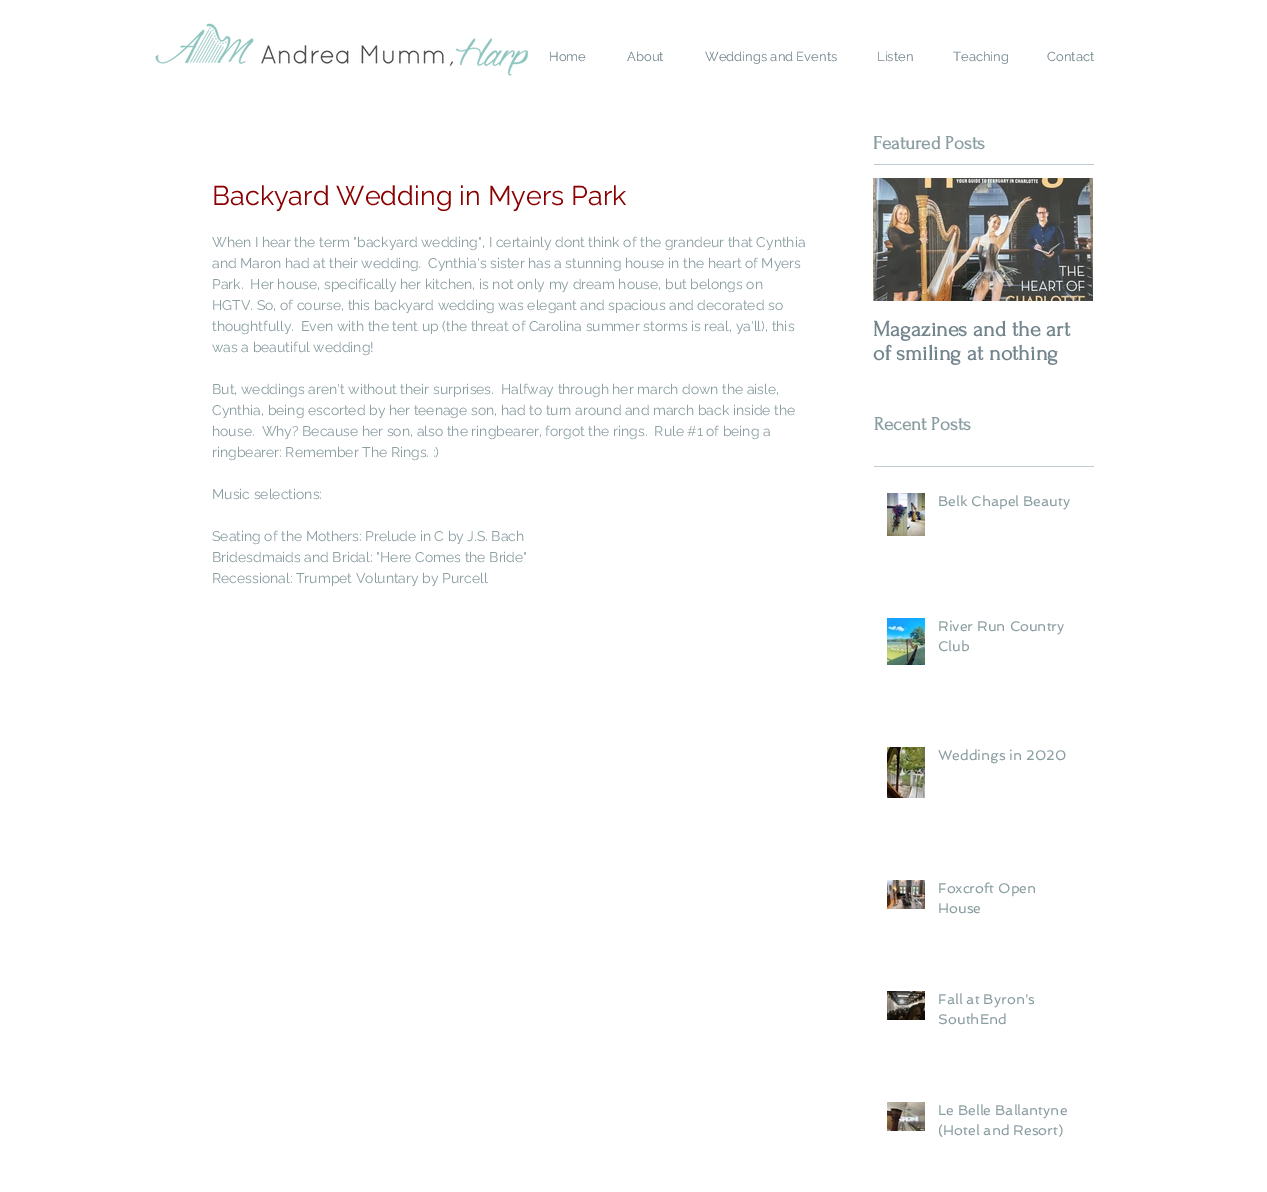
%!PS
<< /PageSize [1267 1192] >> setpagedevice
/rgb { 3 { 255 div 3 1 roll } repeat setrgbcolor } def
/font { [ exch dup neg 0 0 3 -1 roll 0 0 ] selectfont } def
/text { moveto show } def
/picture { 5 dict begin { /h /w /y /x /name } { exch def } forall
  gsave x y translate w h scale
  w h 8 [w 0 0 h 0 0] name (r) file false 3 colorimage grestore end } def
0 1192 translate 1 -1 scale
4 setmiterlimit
255 255 255 rgb
0 0 1267 1192 rectfill
(img_01.rgb) 155 23 374 53 picture
190 205 209 rgb
874 164 220 1 rectfill
(img_02.rgb) 873 178 220 123 picture
874 466 220 1 rectfill
(img_03.rgb) 887 493 38 43 picture
(img_04.rgb) 887 618 38 47 picture
(img_05.rgb) 887 747 38 51 picture
(img_06.rgb) 887 880 38 29 picture
(img_07.rgb) 887 991 38 29 picture
(img_08.rgb) 887 1102 38 29 picture
/Raleway-Regular 13 font
114 133 140 rgb
(Home) 549 61 text
(About) 627 61 text
(Weddings and Events) 705 61 text
(Listen) 877 61 text
(Teaching) 953 61 text
(Contact) 1047 61 text
/Forum-Bold 19 font
138 157 161 rgb
(Featured Posts) 873 149 text
/Raleway-Regular 27 font
139 0 0 rgb
(Backyard Wedding in Myers Park) 212 205 text
/Raleway-Regular 14 font
138 157 161 rgb
(When I hear the term "backyard wedding", I certainly dont think of the grandeur that Cynthia) 212 247 text
(and Maron had at their wedding.  Cynthia's sister has a stunning house in the heart of Myers) 212 268 text
(Park.  Her house, specifically her kitchen, is not only my dream house, but belongs on) 212 289 text
(HGTV. So, of course, this backyard wedding was elegant and spacious and decorated so) 212 310 text
(thoughtfully.  Even with the tent up \(the threat of Carolina summer storms is real, ya'll\), this) 212 331 text
(was a beautiful wedding!) 212 352 text
(But, weddings aren't without their surprises.  Halfway through her march down the aisle,) 212 394 text
(Cynthia, being escorted by her teenage son, had to turn around and march back inside the) 212 415 text
(house.  Why? Because her son, also the ringbearer, forgot the rings.  Rule) 212 436 text
146 166 162 rgb
(#1) 687 436 text
138 157 161 rgb
(of being a) 706 436 text
(ringbearer: Remember The Rings. :\)) 212 457 text
(Music selections:) 212 499 text
(Seating of the Mothers: Prelude in C by J.S. Bach) 212 541 text
(Bridesdmaids and Bridal: "Here Comes the Bride") 212 562 text
(Recessional: Trumpet Voluntary by Purcell) 212 583 text
/Forum-Bold 22 font
114 133 140 rgb
(Magazines and the art) 873 336 text
(of smiling at nothing) 873 360 text
/Forum-Bold 19 font
138 157 161 rgb
(Recent Posts) 874 430 text
/Spinnaker-Regular 14 font
(Belk Chapel Beauty) 938 506 text
(River Run Country) 938 631 text
(Club) 938 651 text
(Weddings in 2020) 938 760 text
(Foxcroft Open) 938 893 text
(House) 938 913 text
(Fall at Byron's) 938 1004 text
(SouthEnd) 938 1024 text
(Le Belle Ballantyne) 938 1115 text
(\(Hotel and Resort\)) 938 1135 text
showpage
